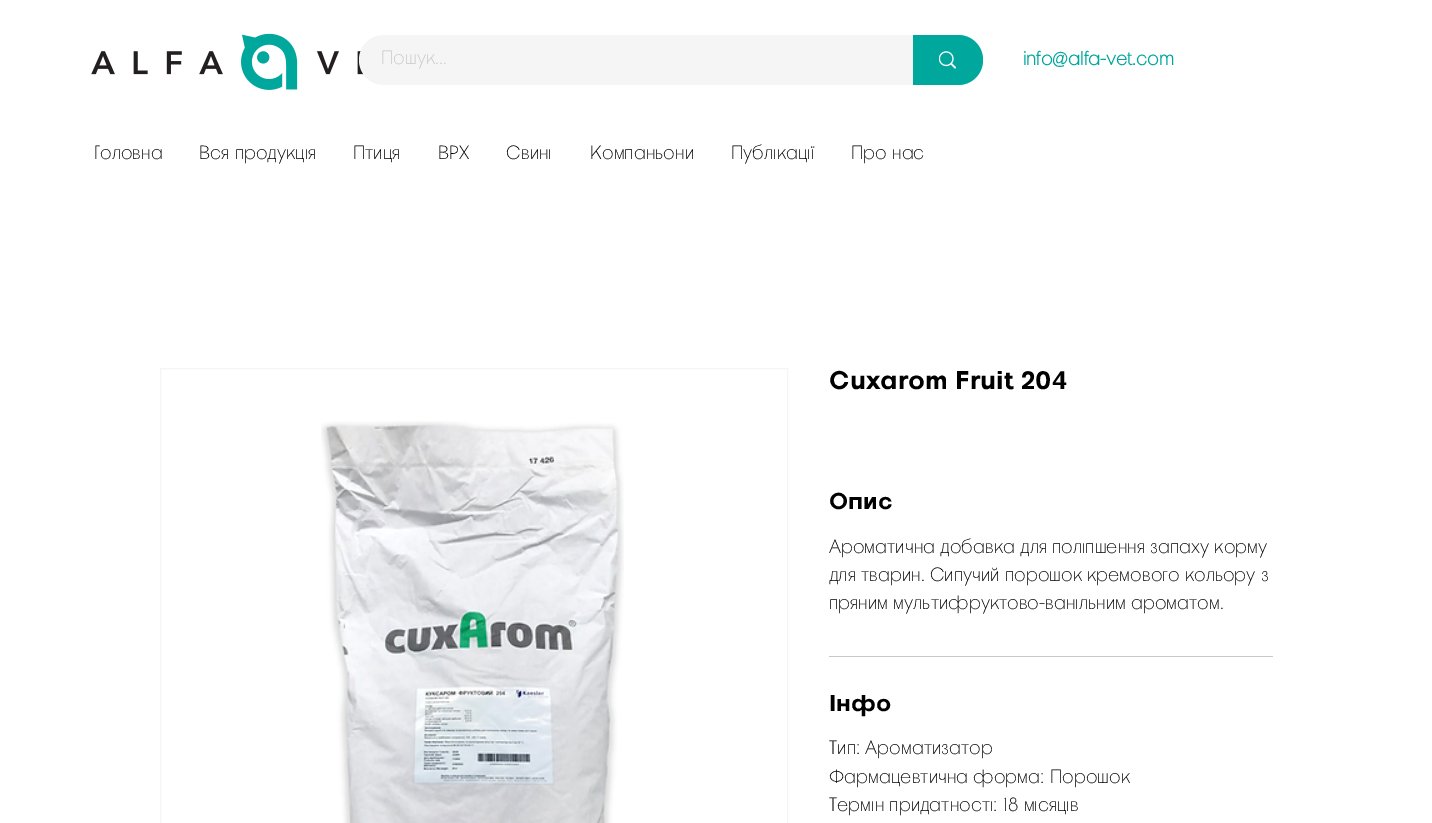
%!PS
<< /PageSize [1432 823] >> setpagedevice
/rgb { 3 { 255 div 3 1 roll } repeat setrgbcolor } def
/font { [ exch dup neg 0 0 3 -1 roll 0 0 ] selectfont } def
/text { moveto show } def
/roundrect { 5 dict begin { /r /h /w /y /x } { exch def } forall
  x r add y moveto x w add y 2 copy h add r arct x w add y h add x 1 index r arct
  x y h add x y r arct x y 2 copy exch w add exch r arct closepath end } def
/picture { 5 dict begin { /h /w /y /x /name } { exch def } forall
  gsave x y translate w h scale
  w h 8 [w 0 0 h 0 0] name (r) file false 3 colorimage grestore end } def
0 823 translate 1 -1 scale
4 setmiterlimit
255 255 255 rgb
0 0 1432 823 rectfill
(img_01.rgb) 91 33 273 57 picture
245 245 245 rgb
359 35 624 50 25 roundrect fill
0 167 157 rgb
913 35 moveto 45 0 rlineto 14 0 25 11 25 25 rcurveto 0 14 -11 25 -25 25 rcurveto -45 0 rlineto closepath fill
(img_02.rgb) 939 51 17 18 picture
245 245 245 rgb
160.5 368.5 627 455 rectstroke
(img_03.rgb) 321 421 303 402 picture
199 199 199 rgb
829 656 444 1 rectfill
/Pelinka-ExtraLight 18.75 font
(Пошук...) 381 64 text
/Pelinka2-Bold 18.75 font
0 167 157 rgb
(info@alfa-vet.com) 1023 65 text
/Pelinka-ExtraLight 18.75 font
0 0 0 rgb
(Головна) 94 159 text
(Вся продукція) 199 159 text
(Птиця) 353 159 text
(ВРХ) 438 159 text
(Свині) 506 159 text
(Компаньони) 590 159 text
(Публікації) 731 159 text
(Про нас) 851 159 text
/Pelinka-Bold 25 font
(Cuxarom Fruit 204) 829 389 text
/Pelinka-Bold 22.5 font
(Опис) 829 509 text
/Pelinka-ExtraLight 18.75 font
(Ароматична добавка для поліпшення запаху корму) 829 553 text
(для тварин. Сипучий порошок кремового кольору з) 829 581 text
(пряним мультифруктово-ванільним ароматом.) 829 609 text
/Pelinka-Bold 22.5 font
(Інфо) 829 711 text
/Pelinka-ExtraLight 18.75 font
(Тип: Ароматизатор) 829 754 text
(Фармацевтична форма: Порошок) 829 783 text
(Термін придатності: 18 місяців) 829 811 text
showpage
